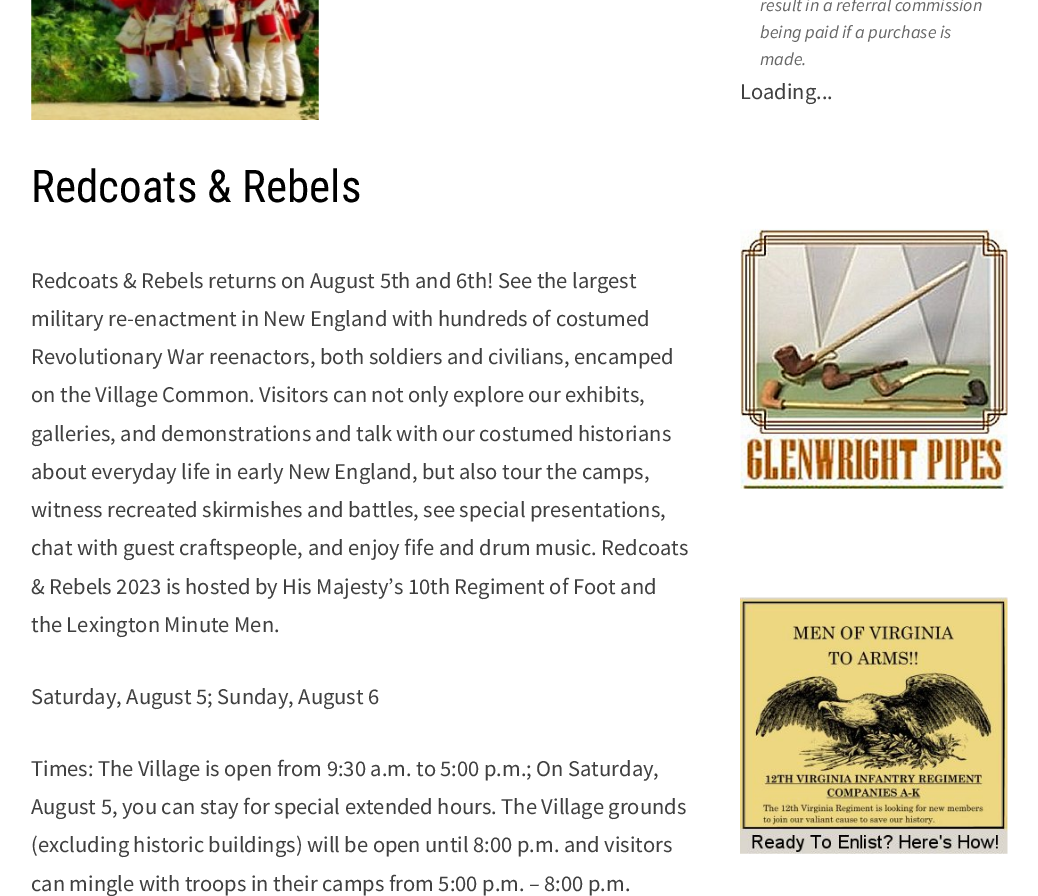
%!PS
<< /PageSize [1038 896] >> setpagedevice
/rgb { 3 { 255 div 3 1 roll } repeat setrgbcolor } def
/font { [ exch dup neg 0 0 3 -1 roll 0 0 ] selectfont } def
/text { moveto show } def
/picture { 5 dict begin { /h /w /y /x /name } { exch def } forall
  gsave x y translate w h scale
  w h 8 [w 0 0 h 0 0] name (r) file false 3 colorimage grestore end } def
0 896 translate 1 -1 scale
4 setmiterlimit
255 255 255 rgb
0 0 1038 896 rectfill
(img_01.rgb) 740 228 268 261 picture
(img_02.rgb) 740 597 268 257 picture
(img_03.rgb) 31 0 288 120 picture
/SourceSansPro-Italic 18 font
102 102 102 rgb
(result in a referral commission) 760 11 text
(being paid if a purchase is) 760 38 text
(made.) 760 65 text
/SourceSansPro-Regular 22.5 font
64 64 64 rgb
(Loading...) 740 99 text
/RobotoCondensed-Regular 45 font
0 0 0 rgb
(Redcoats & Rebels) 31 202 text
/SourceSansPro-Regular 22.5 font
64 64 64 rgb
(Redcoats & Rebels returns on August 5th and 6th! See the largest) 31 288 text
(military re-enactment in New England with hundreds of costumed) 31 326 text
(Revolutionary War reenactors, both soldiers and civilians, encamped) 31 364 text
(on the Village Common. Visitors can not only explore our exhibits,) 31 402 text
(galleries, and demonstrations and talk with our costumed historians) 31 441 text
(about everyday life in early New England, but also tour the camps,) 31 479 text
(witness recreated skirmishes and battles, see special presentations,) 31 517 text
(chat with guest craftspeople, and enjoy fife and drum music. Redcoats) 31 555 text
(& Rebels 2023 is hosted by His Majesty’s 10th Regiment of Foot and) 31 594 text
(the Lexington Minute Men.) 31 632 text
(Saturday, August 5; Sunday, August 6) 31 704 text
(Times: The Village is open from 9:30 a.m. to 5:00 p.m.; On Saturday,) 31 776 text
(August 5, you can stay for special extended hours. The Village grounds) 31 814 text
(\(excluding historic buildings\) will be open until 8:00 p.m. and visitors) 31 852 text
(can mingle with troops in their camps from 5:00 p.m. – 8:00 p.m.) 31 891 text
showpage
